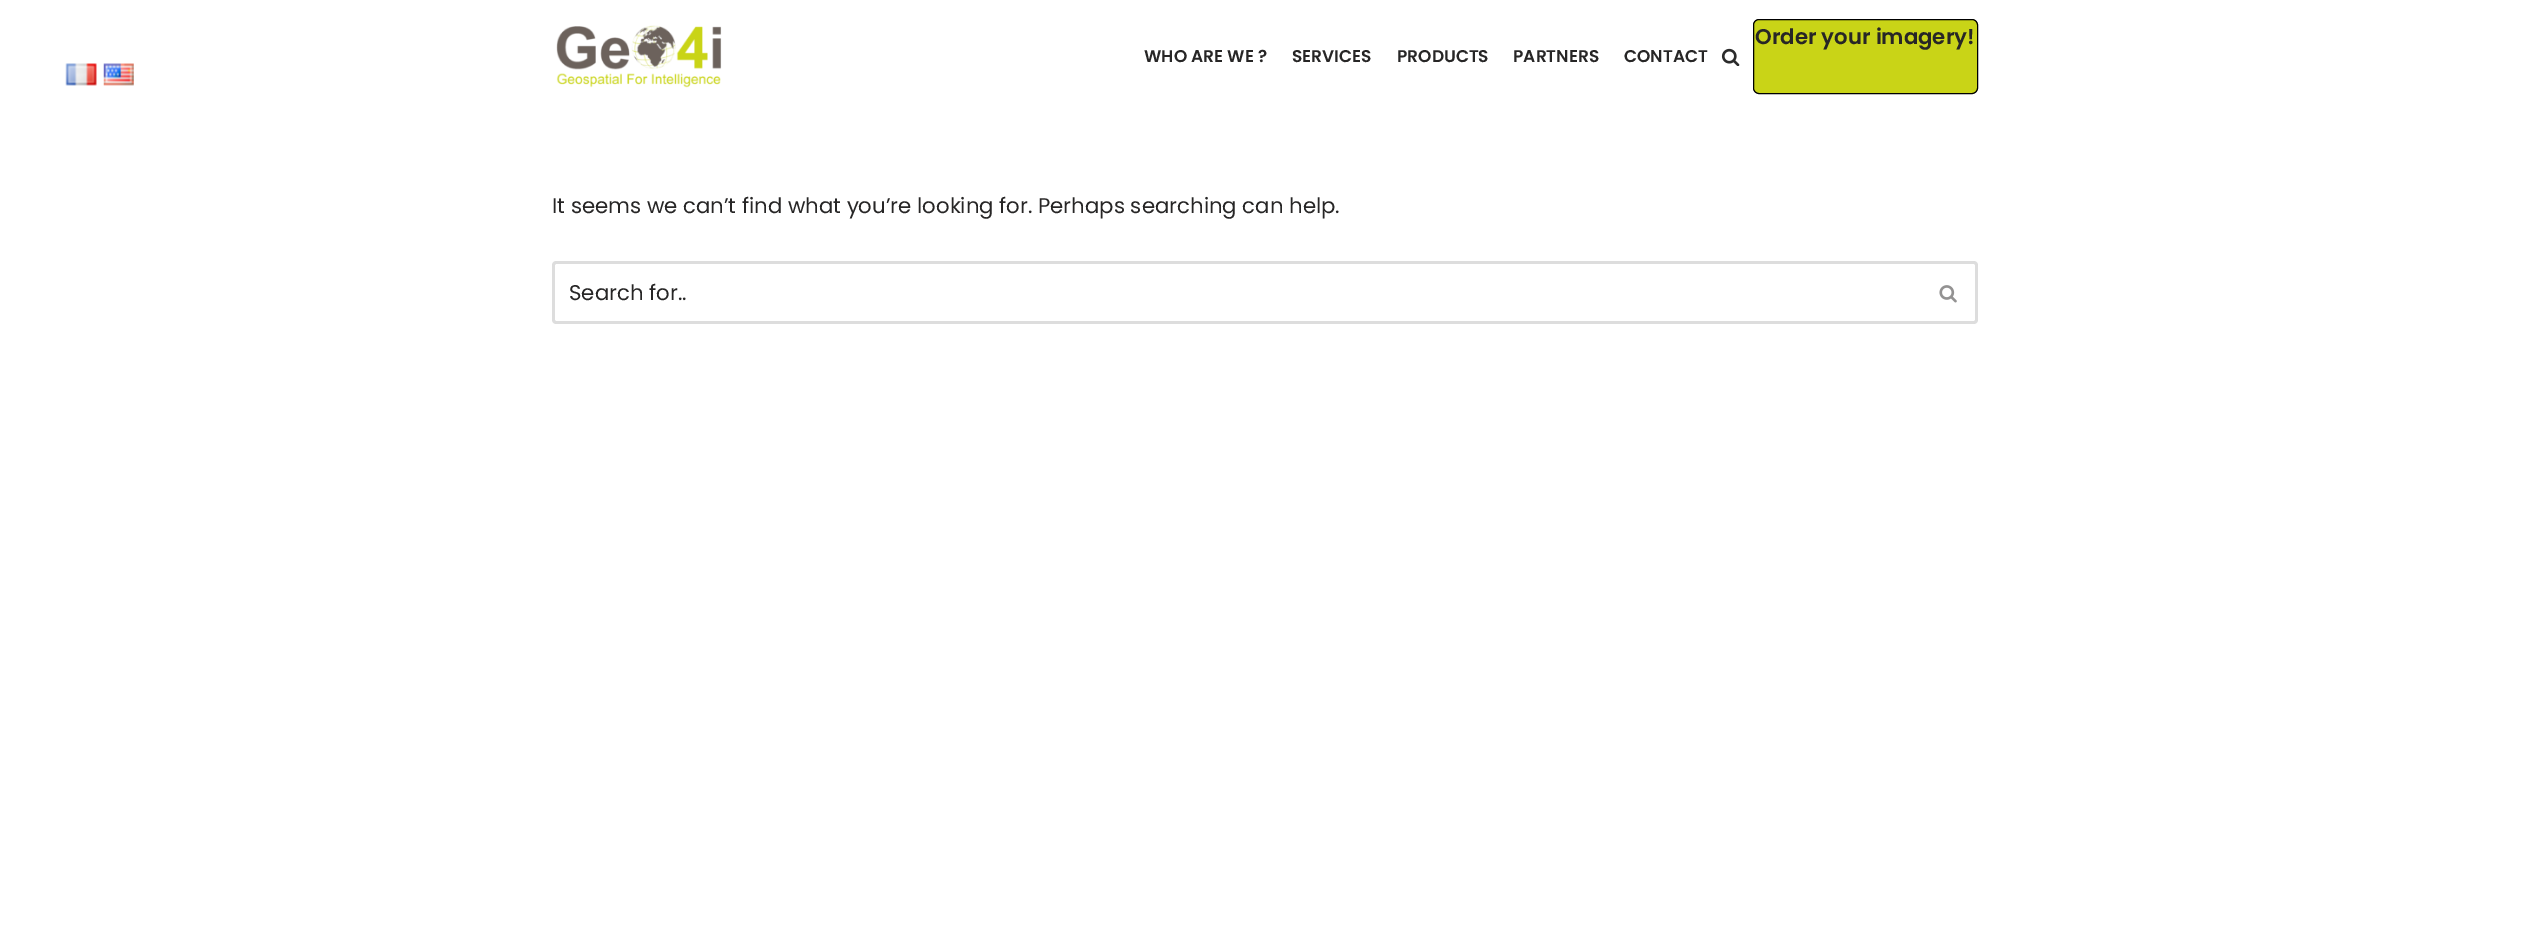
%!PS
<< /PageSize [2528 945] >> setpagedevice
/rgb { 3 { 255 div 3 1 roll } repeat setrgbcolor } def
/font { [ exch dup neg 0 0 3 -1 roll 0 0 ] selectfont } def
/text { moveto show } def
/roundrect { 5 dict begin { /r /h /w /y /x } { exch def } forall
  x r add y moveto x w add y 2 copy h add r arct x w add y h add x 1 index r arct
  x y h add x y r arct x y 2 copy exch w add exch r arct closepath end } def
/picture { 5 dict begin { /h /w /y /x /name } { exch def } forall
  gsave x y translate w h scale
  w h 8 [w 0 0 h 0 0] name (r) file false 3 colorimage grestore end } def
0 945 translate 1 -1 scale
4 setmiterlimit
255 255 255 rgb
0 0 2528 945 rectfill
(img_01.rgb) 556 25 166 63 picture
201 212 23 rgb
1753.5 19.5 224 74 5.5 roundrect gsave fill grestore
0 0 0 rgb
stroke
(img_02.rgb) 1721 48 19 18 picture
(img_03.rgb) 65 63 32 23 picture
(img_04.rgb) 103 63 31 23 picture
221 221 221 rgb
556 261 moveto 1365 0 rlineto 0 63 rlineto -1365 0 rlineto -2 0 -4 -2 -4 -4 rcurveto 0 -55 rlineto 0 -2 2 -4 4 -4 rcurveto closepath 556 264 moveto 1365 0 rlineto 0 57 rlineto -1365 0 rlineto 0 0 -1 0 -1 -1 rcurveto 0 -55 rlineto 0 -1 1 -1 1 -1 rcurveto closepath eofill
1921 261 moveto 53 0 rlineto 2 0 4 2 4 4 rcurveto 0 55 rlineto 0 2 -2 4 -4 4 rcurveto -53 0 rlineto closepath 1921 264 moveto 53 0 rlineto 0 0 1 0 1 1 rcurveto 0 55 rlineto 0 1 -1 1 -1 1 rcurveto -53 0 rlineto closepath eofill
(img_05.rgb) 1939 285 18 18 picture
/Poppins-SemiBold 21.25 font
39 38 38 rgb
(Order your imagery!) 1755 44 text
/Poppins-SemiBold 17 font
(WHO ARE WE ?) 1144 62 text
(SERVICES) 1292 62 text
(PRODUCTS) 1397 62 text
(PARTNERS) 1513 62 text
(CONTACT) 1624 62 text
/Poppins-Regular 21.25 font
(It seems we can’t find what you’re looking for. Perhaps searching can help.) 552 213 text
(Search for..) 569 300 text
showpage
